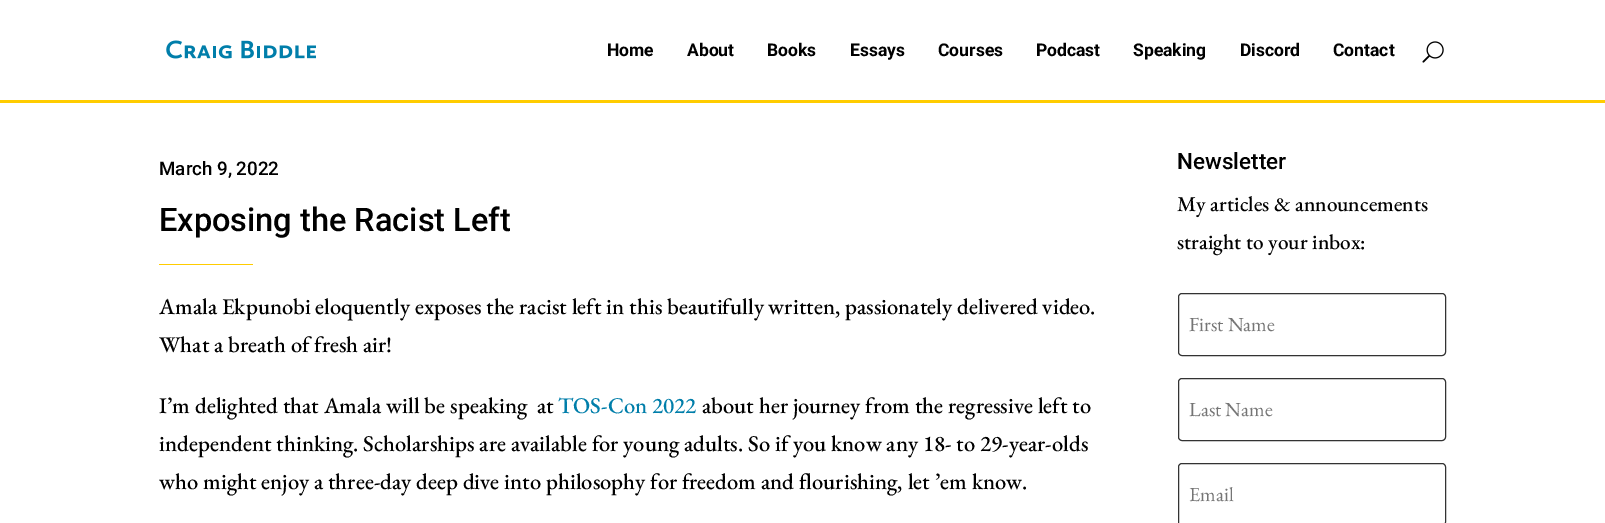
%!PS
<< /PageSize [1605 523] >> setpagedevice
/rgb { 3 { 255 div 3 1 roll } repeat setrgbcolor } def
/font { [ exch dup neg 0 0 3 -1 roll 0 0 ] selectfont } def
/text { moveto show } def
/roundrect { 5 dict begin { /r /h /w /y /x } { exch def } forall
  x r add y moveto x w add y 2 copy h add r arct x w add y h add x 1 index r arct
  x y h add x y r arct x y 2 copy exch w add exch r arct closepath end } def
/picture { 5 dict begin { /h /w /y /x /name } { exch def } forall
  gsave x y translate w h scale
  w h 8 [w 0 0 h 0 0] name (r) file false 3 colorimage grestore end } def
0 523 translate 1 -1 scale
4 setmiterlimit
255 255 255 rgb
0 0 1605 523 rectfill
255 204 0 rgb
0 100 1605 3 rectfill
(img_01.rgb) 166 40 150 19 picture
(img_02.rgb) 1422 41 22 22 picture
159 264 94 1 rectfill
51 51 51 rgb
1178.5 293.5 267 62 3.5 roundrect stroke
1178.5 378.5 267 62 3.5 roundrect stroke
1178.5 463.5 267 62 3.5 roundrect stroke
/Roboto-Bold 17.5 font
0 0 0 rgb
(Home) 607 56 text
(About) 687 56 text
(Books) 767 56 text
(Essays) 850 56 text
(Courses) 938 56 text
(Podcast) 1036 56 text
(Speaking) 1133 56 text
(Discord) 1240 56 text
(Contact) 1333 56 text
/Roboto-Medium 18.75 font
(March 9, 2022) 159 175 text
/Roboto-Medium 32.5 font
(Exposing the Racist Left) 159 231 text
/EBGaramond-Medium 22.5 font
(Amala Ekpunobi eloquently exposes the racist left in this beautifully written, passionately delivered video.) 159 314 text
(What a breath of fresh air!) 159 352 text
(I’m delighted that Amala will be speaking) 159 413 text
(at) 537 413 text
0 126 170 rgb
(TOS-Con 2022) 558 413 text
0 0 0 rgb
(about her journey from the regressive left to) 702 413 text
(independent thinking. Scholarships are available for young adults. So if you know any 18- to 29-year-olds) 159 451 text
(who might enjoy a three-day deep dive into philosophy for freedom and flourishing, let ’em know.) 159 489 text
/Roboto-Medium 22.5 font
(Newsletter) 1177 169 text
/EBGaramond-Medium 21.25 font
(My articles & announcements) 1177 211 text
(straight to your inbox:) 1177 249 text
/EBGaramond-Regular 20 font
117 117 117 rgb
(First Name) 1189 331 text
(Last Name) 1189 416 text
(Email) 1189 501 text
showpage
